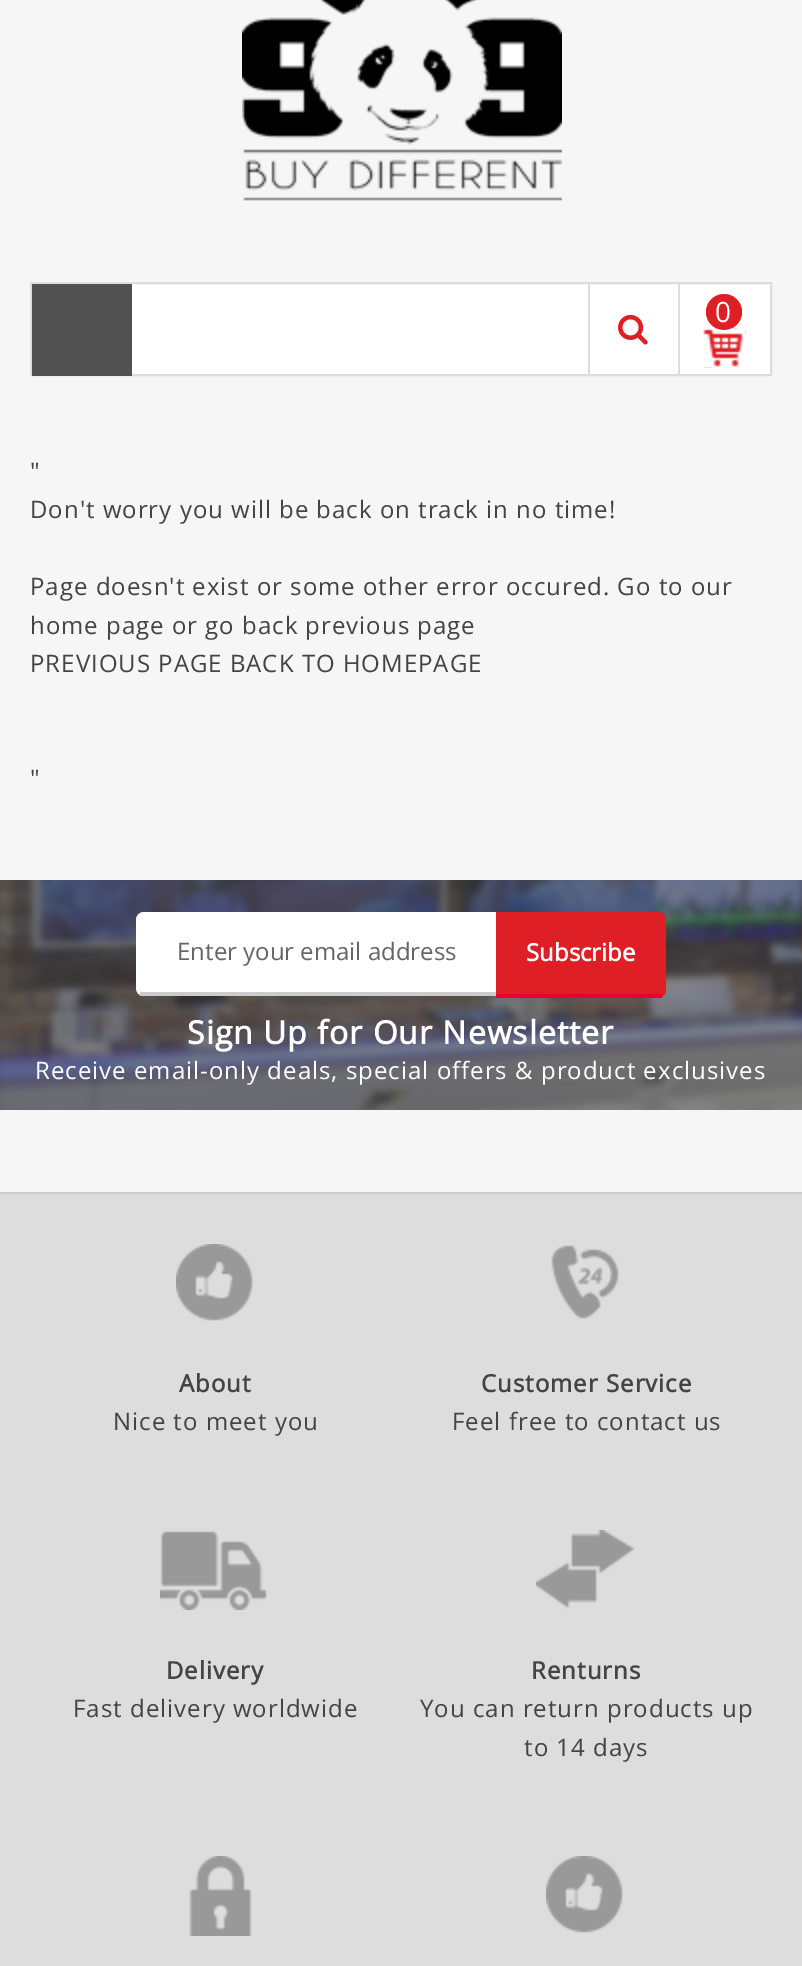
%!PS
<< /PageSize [802 1966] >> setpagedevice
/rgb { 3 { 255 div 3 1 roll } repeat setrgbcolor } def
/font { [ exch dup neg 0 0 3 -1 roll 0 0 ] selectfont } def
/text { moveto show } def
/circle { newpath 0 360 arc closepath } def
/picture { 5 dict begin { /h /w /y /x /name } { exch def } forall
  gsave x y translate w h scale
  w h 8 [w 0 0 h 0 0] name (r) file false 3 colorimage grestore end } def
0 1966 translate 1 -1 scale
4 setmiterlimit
246 246 246 rgb
0 0 802 1966 rectfill
255 255 255 rgb
132 284 638 90 rectfill
221 221 221 rgb
2 setlinewidth
31 283 740 92 rectstroke
82 82 82 rgb
32 284 100 92 rectfill
221 221 221 rgb
678 282 2 92 rectfill
588 282 2 92 rectfill
(img_01.rgb) 618 314 30 31 picture
(img_02.rgb) 242 0 320 201 picture
223 31 38 rgb
724 312 18 circle fill
(img_03.rgb) 703 328 43 40 picture
(img_04.rgb) 0 880 802 230 picture
255 255 255 rgb
144 912 moveto 352 0 rlineto 0 84 rlineto -352 0 rlineto -4.5 0 -8 -3.5 -8 -8 rcurveto 0 -68 rlineto 0 -4.5 3.5 -8 8 -8 rcurveto closepath fill
204 204 204 rgb
140 992 356 4 rectfill
223 31 38 rgb
496 912 moveto 162 0 rlineto 4.5 0 8 3.5 8 8 rcurveto 0 70 rlineto 0 4.5 -3.5 8 -8 8 rcurveto -162 0 rlineto closepath fill
231 0 54 rgb
496 994 166 4 rectfill
221 221 221 rgb
0 1194 802 772 rectfill
204 204 204 rgb
0 1192 802 2 rectfill
(img_05.rgb) 176 1244 77 77 picture
(img_06.rgb) 551 1245 68 74 picture
(img_07.rgb) 160 1531 107 79 picture
(img_08.rgb) 536 1530 99 79 picture
(img_09.rgb) 189 1856 63 80 picture
(img_05.rgb) 546 1856 77 77 picture
/OpenSans-Regular 28 font
255 255 255 rgb
715 322 moveto 1 0 (0) ashow
/OpenSans-Regular 24 font
68 68 68 rgb
30 480 moveto 1 0 (") ashow
30 518 moveto 1 0 (Don't worry you will be back on track in no time!) ashow
30 595 moveto 1 0 (Page doesn't exist or some other error occured. Go to our) ashow
30 634 moveto 1 0 (home page or go back previous page) ashow
30 672 moveto 1 0 (PREVIOUS PAGE BACK TO HOMEPAGE) ashow
30 787 moveto 1 0 (") ashow
102 102 102 rgb
(Enter your email address) 177 960 text
/OpenSans-Bold 24 font
255 255 255 rgb
(Subscribe) 526 961 text
/OpenSans-Bold 32 font
187 1044 moveto 1 0 (Sign Up for Our Newsletter) ashow
/OpenSans-Regular 24 font
35 1079 moveto 1 0 (Receive email-only deals, special offers & product exclusives) ashow
/OpenSans-Bold 24 font
68 68 68 rgb
179 1392 moveto 1 0 (About) ashow
/OpenSans-Regular 24 font
113 1430 moveto 1 0 (Nice to meet you) ashow
/OpenSans-Bold 24 font
481 1392 moveto 1 0 (Customer Service) ashow
/OpenSans-Regular 24 font
452 1430 moveto 1 0 (Feel free to contact us) ashow
/OpenSans-Bold 24 font
166 1679 moveto 1 0 (Delivery) ashow
/OpenSans-Regular 24 font
73 1717 moveto 1 0 (Fast delivery worldwide) ashow
/OpenSans-Bold 24 font
531 1679 moveto 1 0 (Renturns) ashow
/OpenSans-Regular 24 font
420 1717 moveto 1 0 (You can return products up) ashow
524 1756 moveto 1 0 (to 14 days) ashow
showpage
